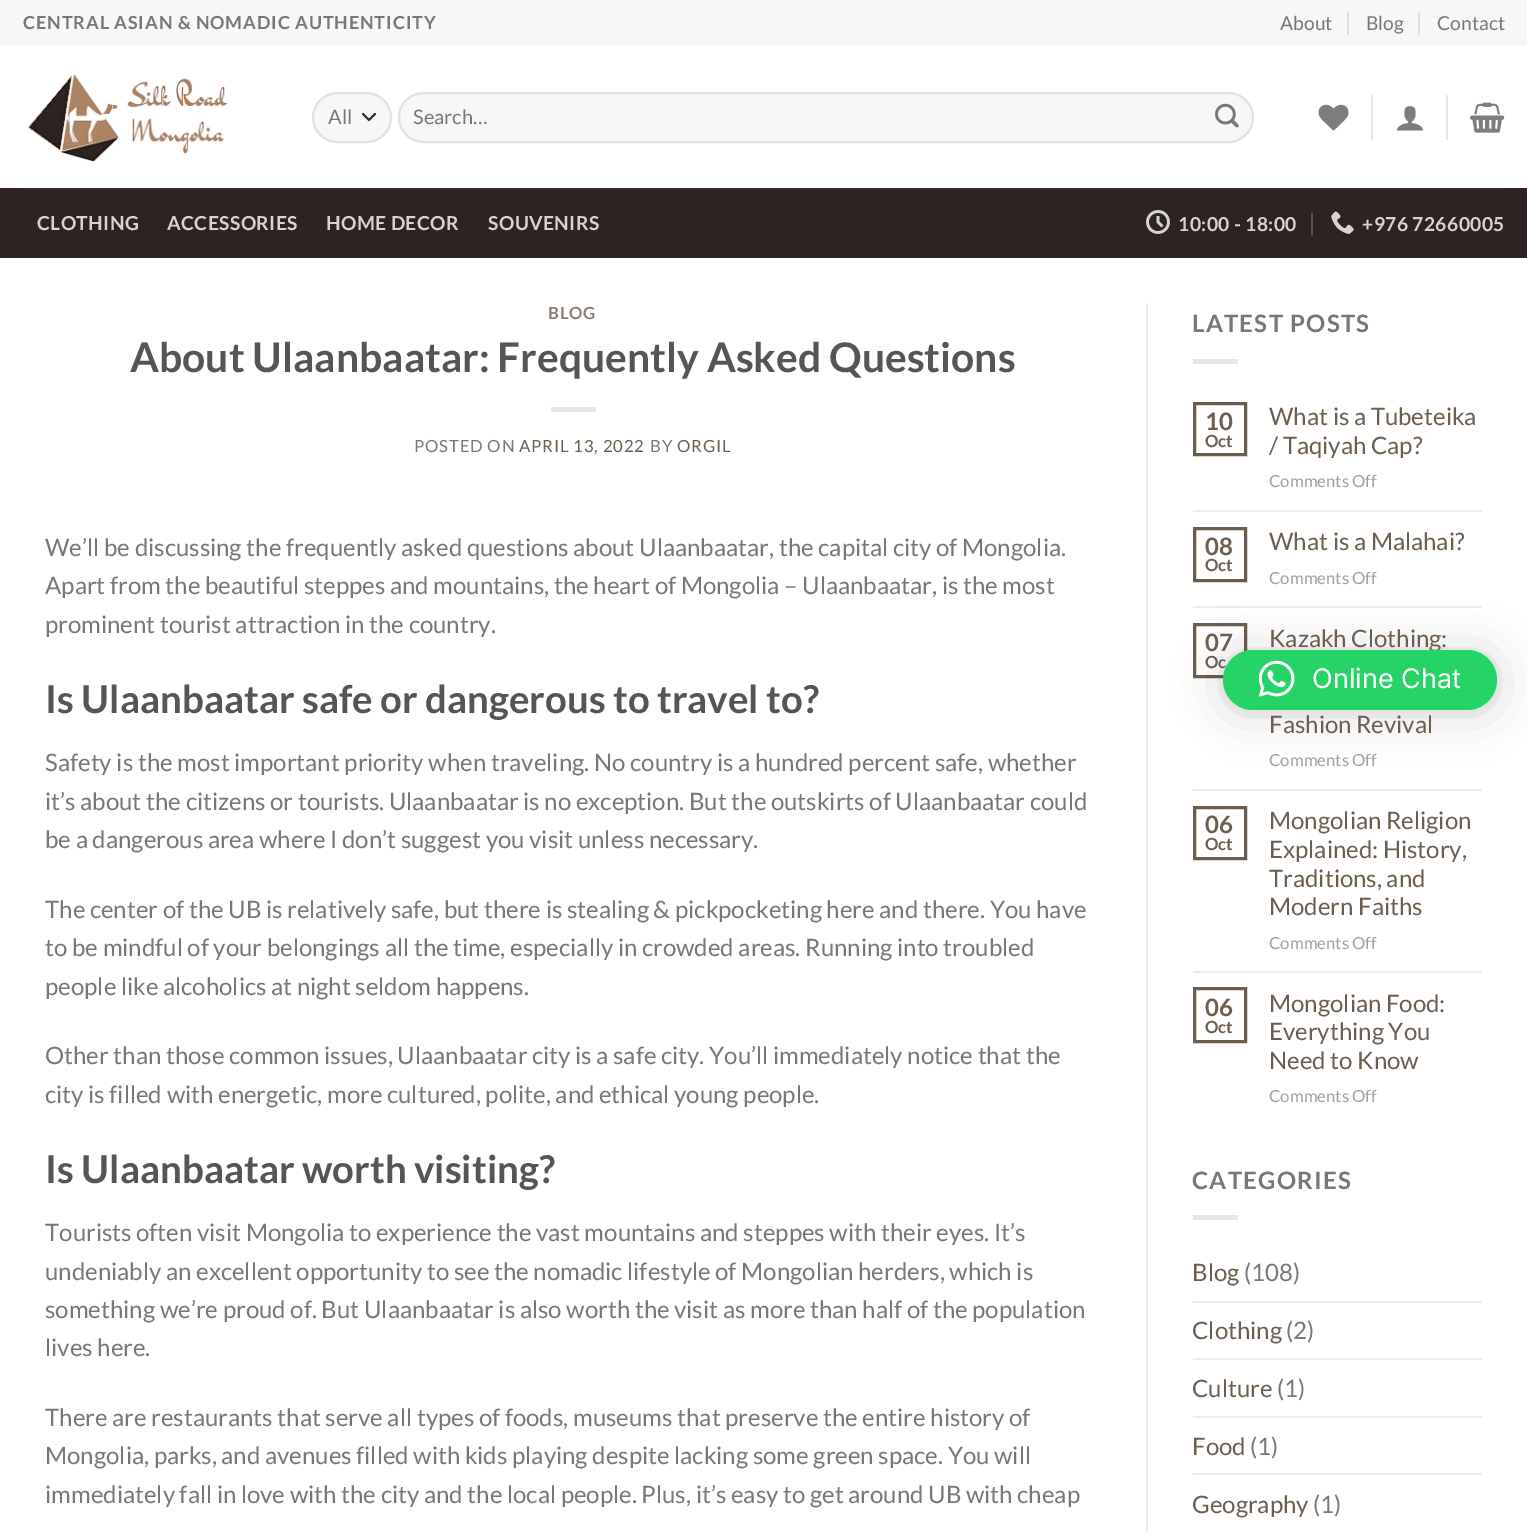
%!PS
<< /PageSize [1527 1532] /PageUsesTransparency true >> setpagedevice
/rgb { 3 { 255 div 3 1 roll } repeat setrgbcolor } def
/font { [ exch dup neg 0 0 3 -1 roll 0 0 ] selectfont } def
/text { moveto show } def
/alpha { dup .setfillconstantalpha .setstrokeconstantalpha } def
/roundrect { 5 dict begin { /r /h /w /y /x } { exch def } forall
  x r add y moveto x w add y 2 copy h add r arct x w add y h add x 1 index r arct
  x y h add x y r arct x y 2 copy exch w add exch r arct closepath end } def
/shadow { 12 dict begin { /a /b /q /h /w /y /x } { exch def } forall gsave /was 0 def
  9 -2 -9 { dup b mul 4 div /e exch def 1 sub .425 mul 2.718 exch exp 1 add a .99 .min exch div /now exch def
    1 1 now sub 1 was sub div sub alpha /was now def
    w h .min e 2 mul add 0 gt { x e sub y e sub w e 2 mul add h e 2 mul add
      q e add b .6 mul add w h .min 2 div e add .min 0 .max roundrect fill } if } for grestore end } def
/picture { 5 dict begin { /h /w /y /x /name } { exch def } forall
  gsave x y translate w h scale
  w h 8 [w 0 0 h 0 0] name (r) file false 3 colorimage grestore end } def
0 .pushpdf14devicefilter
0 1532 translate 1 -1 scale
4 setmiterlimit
255 255 255 rgb
0 0 1527 1532 rectfill
247 247 247 rgb
0 0 1527 45 rectfill
222 222 222 rgb
1347 12 2 23 rectfill
1418 12 2 23 rectfill
(img_01.rgb) 28 74 200 88 picture
247 247 247 rgb
312 92 80 51 25.5 roundrect fill
51 51 51 rgb
2 setlinewidth
1 setlinecap
1 setlinejoin
363 114 moveto 6 6 rlineto 6 -6 rlineto stroke
0.09 alpha
0 0 0 rgb
0 setlinecap
0 setlinejoin
313 93 78 49 24.5 roundrect stroke
1 alpha
247 247 247 rgb
398 92 856 51 25.5 roundrect fill
0.09 alpha
0 0 0 rgb
399 93 854 49 24.5 roundrect stroke
1 alpha
(img_02.rgb) 1215 103 24 25 picture
(img_03.rgb) 1318 104 31 27 picture
230 230 230 rgb
1371 95 2 45 rectfill
(img_04.rgb) 1396 106 28 25 picture
1446 95 2 45 rectfill
(img_05.rgb) 1470 102 35 31 picture
45 36 34 rgb
0 188 1527 70 rectfill
52 44 43 rgb
23 188 1482 2 rectfill
(img_06.rgb) 1146 210 24 24 picture
87 80 78 rgb
1311 213 2 23 rectfill
(img_07.rgb) 1331 211 23 23 picture
230 230 230 rgb
551 407 45 5 rectfill
236 236 236 rgb
1146 303 2 1229 rectfill
230 230 230 rgb
1193 359 45 5 rectfill
107 94 79 rgb
3 setlinewidth
1194.5 403.5 51 51 rectstroke
236 236 236 rgb
1193 510 289 2 rectfill
107 94 79 rgb
1194.5 528.5 51 52 rectstroke
236 236 236 rgb
1193 606 289 2 rectfill
107 94 79 rgb
1194.5 624.5 51 52 rectstroke
236 236 236 rgb
1193 789 289 2 rectfill
107 94 79 rgb
1194.5 807.5 51 51 rectstroke
236 236 236 rgb
1193 971 289 2 rectfill
107 94 79 rgb
1194.5 988.5 51 53 rectstroke
230 230 230 rgb
1193 1215 45 5 rectfill
236 236 236 rgb
1193 1301 289 2 rectfill
1193 1358 289 2 rectfill
1193 1416 289 2 rectfill
1193 1473 289 2 rectfill
0 0 0 rgb
1223 653 274 60 30 24 0.16 shadow
1223 651 274 60 30 4.5 0.06 shadow
/Lato-Bold 18 font
119 119 119 rgb
23 29 moveto 0.9 0 (CENTRAL ASIAN & NOMADIC AUTHENTICITY) ashow
/Lato-Regular 19.25 font
(About) 1280 30 text
(Blog) 1366 30 text
(Contact) 1437 30 text
/Lato-Regular 20 font
(All) 328 124 text
(Search…) 413 124 text
/Lato-Bold 19.25 font
213 211 211 rgb
37 230 moveto 0.4 0 (CLOTHING) ashow
167 230 moveto 0.4 0 (ACCESSORIES) ashow
326 230 moveto 0.4 0 (HOME DECOR) ashow
488 230 moveto 0.4 0 (SOUVENIRS) ashow
1178 231 moveto 0.4 0 (10:00 - 18:00) ashow
1362 231 moveto 0.4 0 (+976 72660005) ashow
/Lato-Bold 16.75 font
137 126 114 rgb
548 319 moveto 0.8 0 (BLOG) ashow
/Lato-Bold 40.8 font
85 85 85 rgb
(About Ulaanbaatar: Frequently Asked Questions) 130 372 text
/Lato-Regular 16.75 font
119 119 119 rgb
414 452 moveto 0.8 0 (POSTED ON) ashow
107 94 79 rgb
519 452 moveto 0.8 0 (APRIL 13, 2022) ashow
119 119 119 rgb
650 452 moveto 0.8 0 (BY) ashow
107 94 79 rgb
677 452 moveto 0.8 0 (ORGIL) ashow
/Lato-Regular 24 font
119 119 119 rgb
(We’ll be discussing the frequently asked questions about Ulaanbaatar, the capital city of Mongolia.) 45 556 text
(Apart from the beautiful steppes and mountains, the heart of Mongolia – Ulaanbaatar, is the most) 45 594 text
(prominent tourist attraction in the country.) 45 633 text
/Lato-Bold 38.4 font
85 85 85 rgb
(Is Ulaanbaatar safe or dangerous to travel to?) 45 713 text
/Lato-Regular 24 font
119 119 119 rgb
(Safety is the most important priority when traveling. No country is a hundred percent safe, whether) 45 771 text
(it’s about the citizens or tourists. Ulaanbaatar is no exception. But the outskirts of Ulaanbaatar could) 45 810 text
(be a dangerous area where I don’t suggest you visit unless necessary.) 45 848 text
(The center of the UB is relatively safe, but there is stealing & pickpocketing here and there. You have) 45 918 text
(to be mindful of your belongings all the time, especially in crowded areas. Running into troubled) 45 956 text
(people like alcoholics at night seldom happens.) 45 995 text
(Other than those common issues, Ulaanbaatar city is a safe city. You’ll immediately notice that the) 45 1064 text
(city is filled with energetic, more cultured, polite, and ethical young people.) 45 1103 text
/Lato-Bold 38.4 font
85 85 85 rgb
(Is Ulaanbaatar worth visiting?) 45 1183 text
/Lato-Regular 24 font
119 119 119 rgb
(Tourists often visit Mongolia to experience the vast mountains and steppes with their eyes. It’s) 45 1241 text
(undeniably an excellent opportunity to see the nomadic lifestyle of Mongolian herders, which is) 45 1280 text
(something we’re proud of. But Ulaanbaatar is also worth the visit as more than half of the population) 45 1318 text
(lives here.) 45 1356 text
(There are restaurants that serve all types of foods, museums that preserve the entire history of) 45 1426 text
(Mongolia, parks, and avenues filled with kids playing despite lacking some green space. You will) 45 1464 text
(immediately fall in love with the city and the local people. Plus, it’s easy to get around UB with cheap) 45 1503 text
/Lato-Bold 24 font
1192 332 moveto 1.25 0 (LATEST POSTS) ashow
107 94 79 rgb
(10) 1205 430 text
/Lato-Bold 16.75 font
(Oct) 1205 447 text
/Lato-Regular 24 font
(What is a Tubeteika) 1269 425 text
(/ Taqiyah Cap?) 1269 454 text
/Lato-Regular 16.75 font
160 160 160 rgb
(Comments Off) 1269 487 text
/Lato-Bold 24 font
107 94 79 rgb
(08) 1205 555 text
/Lato-Bold 16.75 font
(Oct) 1205 571 text
/Lato-Regular 24 font
(What is a Malahai?) 1269 550 text
/Lato-Regular 16.75 font
160 160 160 rgb
(Comments Off) 1269 584 text
/Lato-Bold 24 font
107 94 79 rgb
(07) 1205 651 text
/Lato-Bold 16.75 font
(Oc) 1205 668 text
/Lato-Regular 24 font
(Kazakh Clothing:) 1269 647 text
(Fashion Revival) 1269 733 text
/Lato-Regular 16.75 font
160 160 160 rgb
(Comments Off) 1269 766 text
/Lato-Bold 24 font
107 94 79 rgb
(06) 1205 833 text
/Lato-Bold 16.75 font
(Oct) 1205 850 text
/Lato-Regular 24 font
(Mongolian Religion) 1269 829 text
(Explained: History,) 1269 858 text
(Traditions, and) 1269 887 text
(Modern Faiths) 1269 915 text
/Lato-Regular 16.75 font
160 160 160 rgb
(Comments Off) 1269 949 text
/Lato-Bold 24 font
107 94 79 rgb
(06) 1205 1016 text
/Lato-Bold 16.75 font
(Oct) 1205 1033 text
/Lato-Regular 24 font
(Mongolian Food:) 1269 1012 text
(Everything You) 1269 1040 text
(Need to Know) 1269 1069 text
/Lato-Regular 16.75 font
160 160 160 rgb
(Comments Off) 1269 1102 text
/Lato-Bold 24 font
119 119 119 rgb
1192 1189 moveto 1.25 0 (CATEGORIES) ashow
/Lato-Regular 24 font
107 94 79 rgb
(Blog) 1192 1281 text
119 119 119 rgb
(\(108\)) 1244 1281 text
107 94 79 rgb
(Clothing) 1192 1339 text
119 119 119 rgb
(\(2\)) 1286 1339 text
107 94 79 rgb
(Culture) 1192 1397 text
119 119 119 rgb
(\(1\)) 1277 1397 text
107 94 79 rgb
(Food) 1192 1455 text
119 119 119 rgb
(\(1\)) 1250 1455 text
107 94 79 rgb
(Geography) 1192 1513 text
119 119 119 rgb
(\(1\)) 1313 1513 text
37 211 102 rgb
1223 650 274 60 30 roundrect fill
(img_08.rgb) 1258 660 37 37 picture
/Inter-Regular 27 font
255 255 255 rgb
(Online Chat) 1312 688 text
.poppdf14devicefilter showpage
